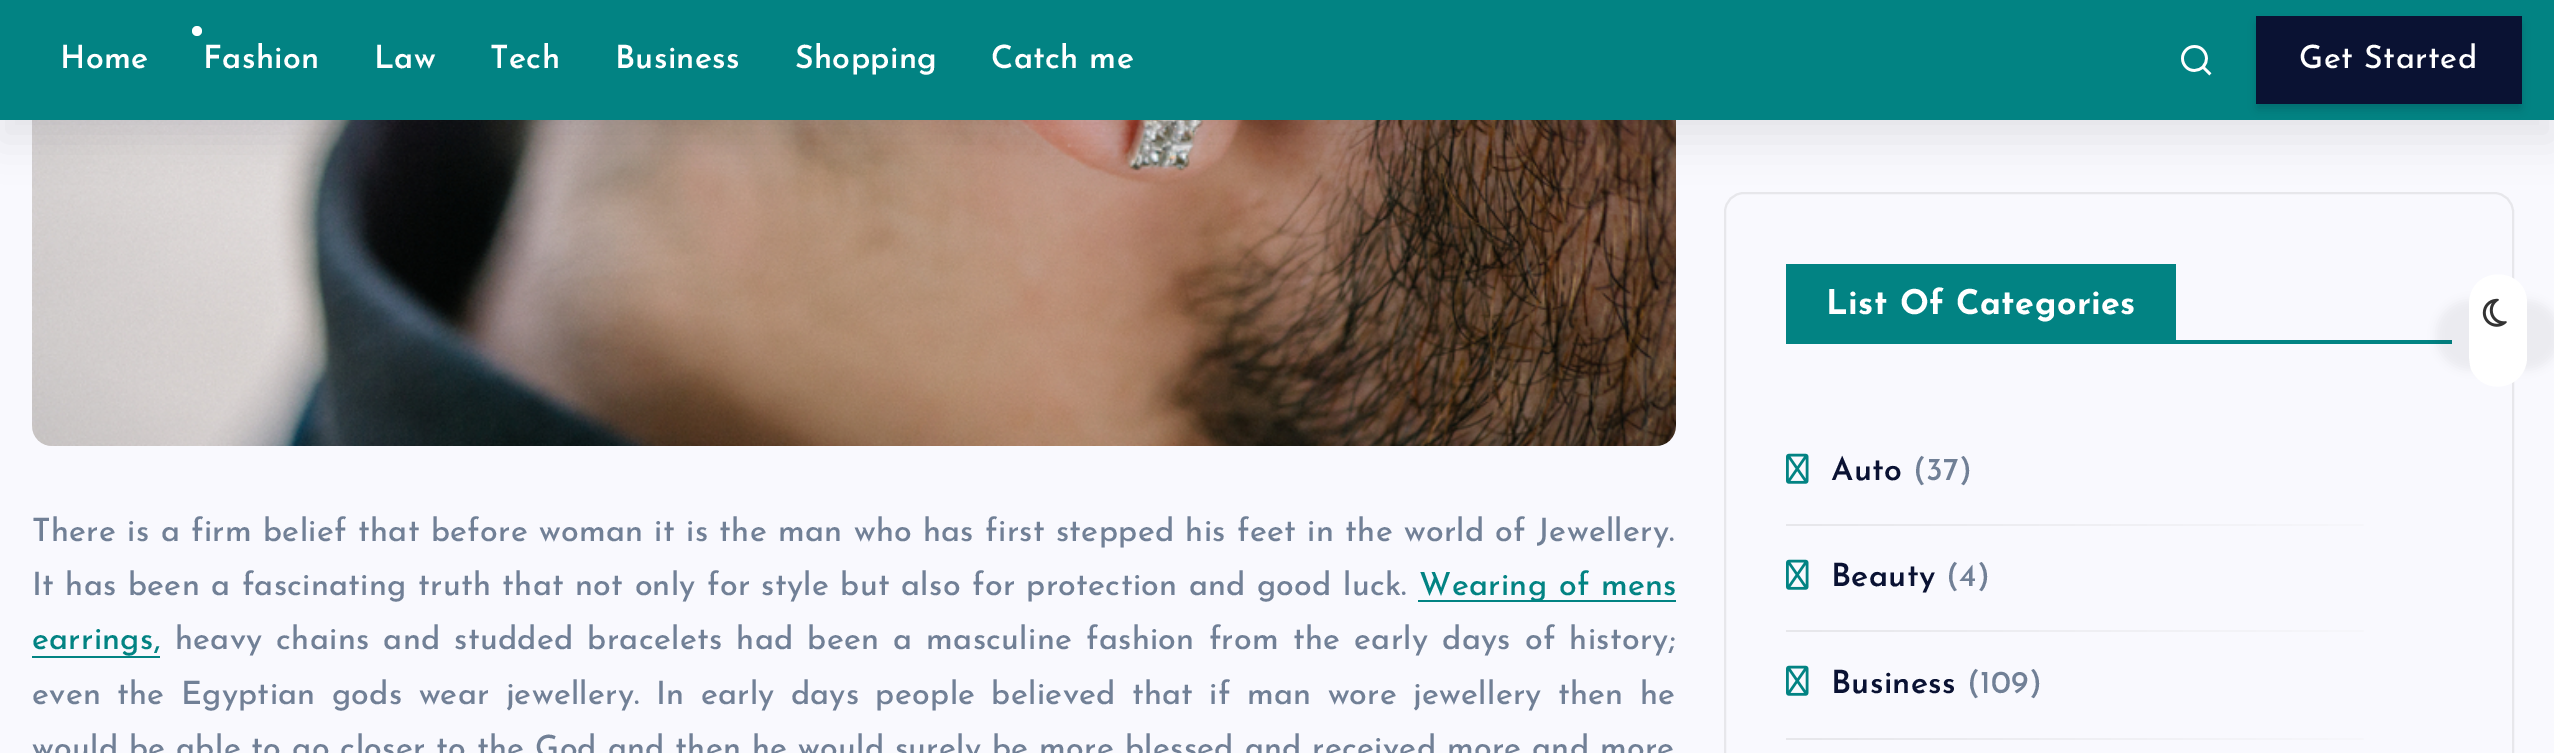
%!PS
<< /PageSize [2554 753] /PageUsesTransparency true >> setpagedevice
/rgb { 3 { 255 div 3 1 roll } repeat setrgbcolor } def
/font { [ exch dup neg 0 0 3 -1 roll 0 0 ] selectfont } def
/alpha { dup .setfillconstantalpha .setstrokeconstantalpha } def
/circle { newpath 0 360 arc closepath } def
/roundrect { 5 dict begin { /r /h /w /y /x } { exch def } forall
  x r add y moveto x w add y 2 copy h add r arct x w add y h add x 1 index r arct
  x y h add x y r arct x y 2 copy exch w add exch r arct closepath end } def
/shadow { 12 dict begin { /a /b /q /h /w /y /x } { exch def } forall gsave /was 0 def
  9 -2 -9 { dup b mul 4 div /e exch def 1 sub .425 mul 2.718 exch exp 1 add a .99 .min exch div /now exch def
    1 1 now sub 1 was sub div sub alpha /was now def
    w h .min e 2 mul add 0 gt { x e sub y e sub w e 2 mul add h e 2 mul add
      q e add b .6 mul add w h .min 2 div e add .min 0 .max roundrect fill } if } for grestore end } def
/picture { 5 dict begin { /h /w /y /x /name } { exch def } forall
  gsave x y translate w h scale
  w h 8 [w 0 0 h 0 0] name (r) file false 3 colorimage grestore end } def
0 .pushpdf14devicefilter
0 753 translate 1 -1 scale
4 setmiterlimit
249 249 254 rgb
0 0 2554 753 rectfill
(img_02.rgb) 32 120 1644 326 picture
231 231 235 rgb
2 setlinewidth
1725 193 788 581 19 roundrect stroke
27 24 47 rgb
0 20 2554 120 0 20 0.1 shadow
2 131 131 rgb
0 0 2554 120 rectfill
255 255 255 rgb
197 31 5 circle fill
(img_01.rgb) 2181 45 31 31 picture
7 10 25 rgb
2258 24 262 84 0 5 0.2 shadow
10 18 51 rgb
2256 16 266 88 rectfill
2 131 131 rgb
1418 600 258 2 rectfill
32 656 128 2 rectfill
1786 264 390 76 rectfill
1786 340 666 4 rectfill
(img_03.rgb) 1786 453 23 31 picture
gsave 1786 524 moveto 578 0 rlineto 0 2 rlineto -578 0 rlineto closepath clip newpath
<< /ShadingType 2 /ColorSpace /DeviceRGB /Coords [1786 525 2452 525] /Extend [true true] /Function << /FunctionType 2 /Domain [0 1] /C0 [0.906 0.906 0.922] /C1 [0.976 0.976 0.996] /N 1 >> >> shfill grestore
(img_03.rgb) 1786 559 23 31 picture
gsave 1786 630 moveto 578 0 rlineto 0 2 rlineto -578 0 rlineto closepath clip newpath
<< /ShadingType 2 /ColorSpace /DeviceRGB /Coords [1786 631 2452 631] /Extend [true true] /Function << /FunctionType 2 /Domain [0 1] /C0 [0.906 0.906 0.922] /C1 [0.976 0.976 0.996] /N 1 >> >> shfill grestore
(img_03.rgb) 1786 665 23 31 picture
gsave 1786 738 moveto 578 0 rlineto 0 2 rlineto -578 0 rlineto closepath clip newpath
<< /ShadingType 2 /ColorSpace /DeviceRGB /Coords [1786 739 2452 739] /Extend [true true] /Function << /FunctionType 2 /Domain [0 1] /C0 [0.906 0.906 0.922] /C1 [0.976 0.976 0.996] /N 1 >> >> shfill grestore
0 0 0 rgb
2436 300 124 70 35 5 0.05 shadow
255 255 255 rgb
2527 303 moveto 0 55 rlineto -1 31 -43 40 -56 11 rcurveto -2 -7 -2 -14 -2 -20 rcurveto 0 -46 rlineto 2 -39 58 -37 58 0 rcurveto closepath fill
(img_04.rgb) 2482 298 25 29 picture
/JosefinSans-SemiBold 32 font
60 68 moveto 0.32 0 (Home) ashow
203 68 moveto 0.32 0 (Fashion) ashow
374 68 moveto 0.32 0 (Law) ashow
490 68 moveto 0.32 0 (Tech) ashow
615 68 moveto 0.32 0 (Business) ashow
795 68 moveto 0.32 0 (Shopping) ashow
991 68 moveto 0.32 0 (Catch me) ashow
/JosefinSans-Medium 32 font
2299 68 moveto 0.6 0 (Get Started) ashow
113 128 150 rgb
32 541 moveto 0.6 0 32 0.32 0 (There is a firm belief that before woman it is the man who has first stepped his feet in the world of Jewellery.) awidthshow
32 595 moveto 0.7 0 32 0.32 0 (It has been a fascinating truth that not only for style but also for protection and good luck.) awidthshow
2 131 131 rgb
1419 595 moveto 1 0 32 0.32 0 (Wearing of mens) awidthshow
32 649 moveto 0.32 0 (earrings,) ashow
113 128 150 rgb
175 649 moveto 3.4 0 32 0.32 0 (heavy chains and studded bracelets had been a masculine fashion from the early days of history;) awidthshow
32 704 moveto 5.6 0 32 0.32 0 (even the Egyptian gods wear jewellery. In early days people believed that if man wore jewellery then he) awidthshow
32 758 moveto 0.25 0 32 0.32 0 (would be able to go closer to the God and then he would surely be more blessed and received more and more) awidthshow
/JosefinSans-Bold 34 font
255 255 255 rgb
1826 314 moveto 0.5 0 (List Of Categories) ashow
/JosefinSans-SemiBold 32 font
10 18 51 rgb
1831 480 moveto 0.32 0 (Auto) ashow
/JosefinSans-Medium 32 font
113 128 150 rgb
1913 480 moveto 0.32 0 (\(37\)) ashow
/JosefinSans-SemiBold 32 font
10 18 51 rgb
1831 586 moveto 0.32 0 (Beauty) ashow
/JosefinSans-Medium 32 font
113 128 150 rgb
1946 586 moveto 0.32 0 (\(4\)) ashow
/JosefinSans-SemiBold 32 font
10 18 51 rgb
1831 693 moveto 0.32 0 (Business) ashow
/JosefinSans-Medium 32 font
113 128 150 rgb
1967 693 moveto 0.32 0 (\(109\)) ashow
.poppdf14devicefilter showpage
